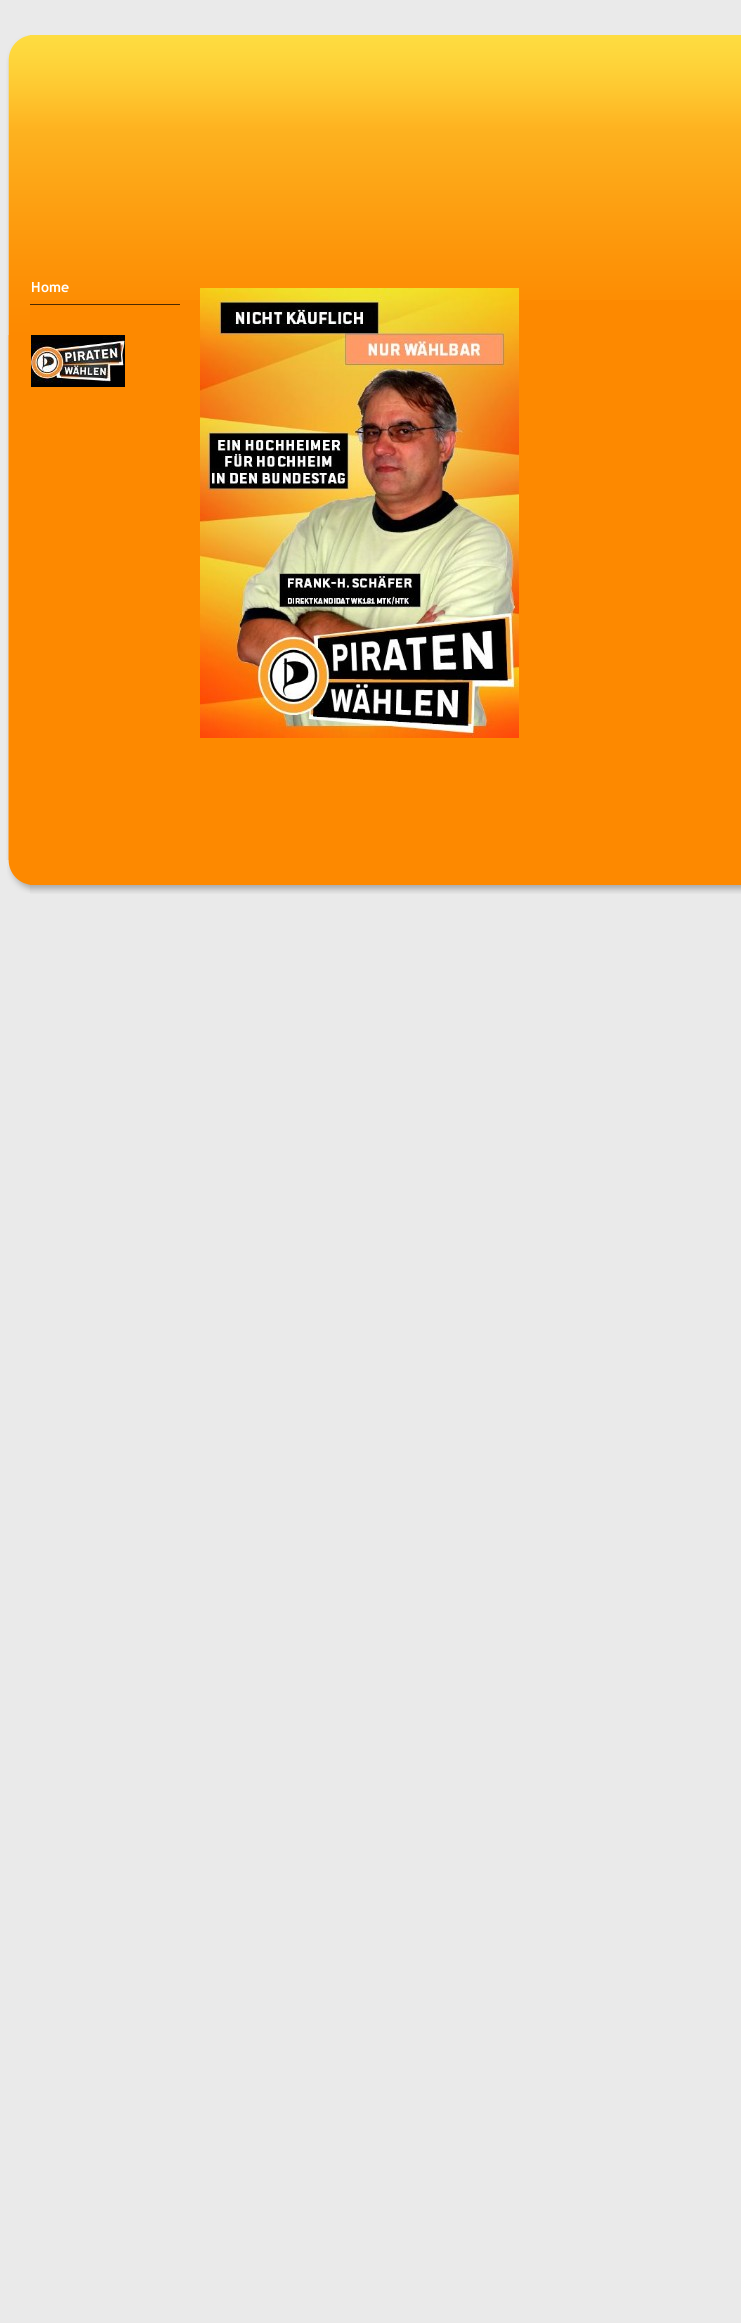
%!PS
<< /PageSize [741 2323] >> setpagedevice
/rgb { 3 { 255 div 3 1 roll } repeat setrgbcolor } def
/picture { 5 dict begin { /h /w /y /x /name } { exch def } forall
  gsave x y translate w h scale
  w h 8 [w 0 0 h 0 0] name (r) file false 3 colorimage grestore end } def
0 2323 translate 1 -1 scale
4 setmiterlimit
234 234 234 rgb
0 0 741 2323 rectfill
(img_01.rgb) 6 335 24 525 picture
(img_02.rgb) 6 35 24 300 picture
253 137 0 rgb
30 300 711 560 rectfill
(img_03.rgb) 30 35 711 265 picture
(img_04.rgb) 30 282 150 23 picture
(img_05.rgb) 31 335 94 52 picture
(img_06.rgb) 200 288 319 450 picture
(img_07.rgb) 7 860 23 33 picture
(img_08.rgb) 30 860 711 34 picture
showpage
